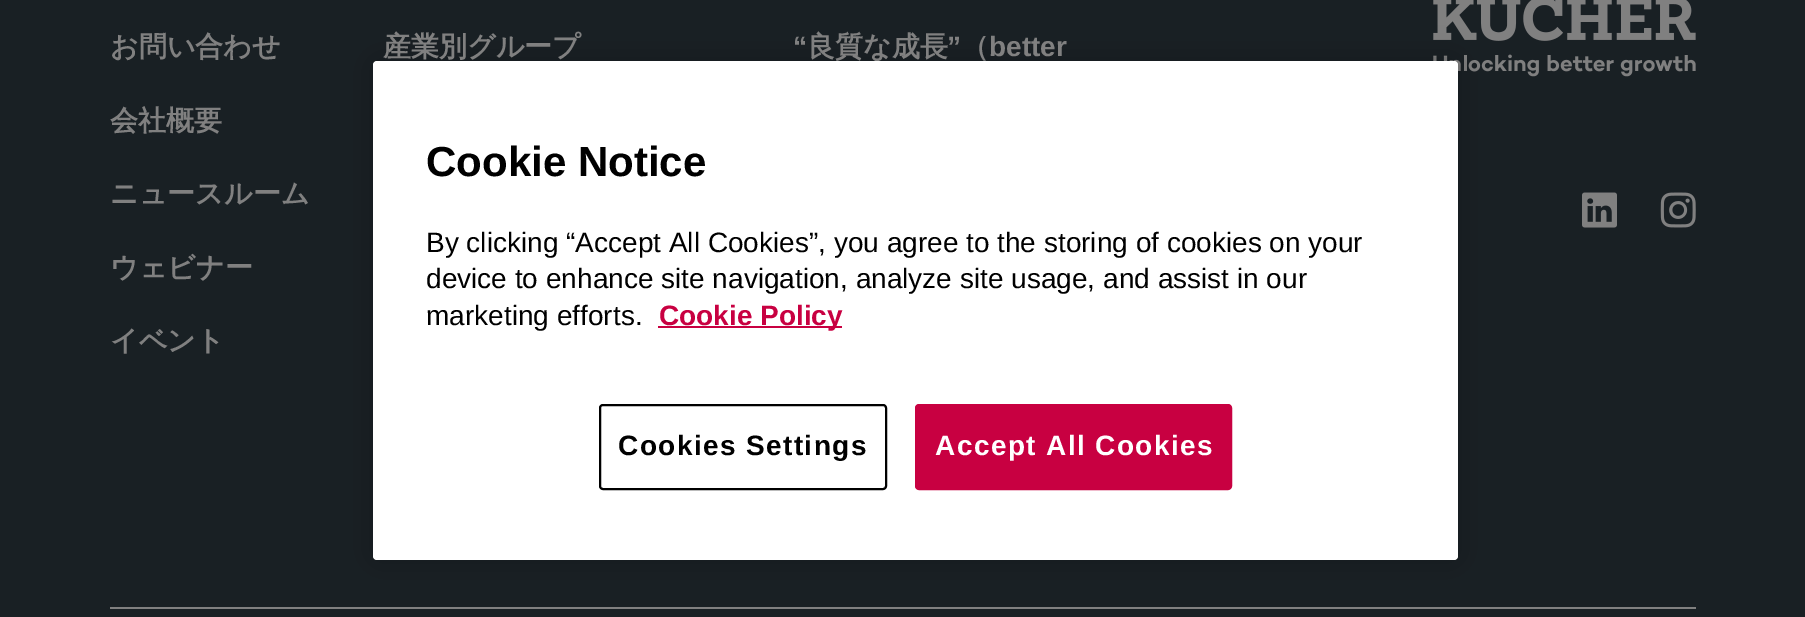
%!PS
<< /PageSize [1805 617] /PageUsesTransparency true >> setpagedevice
/rgb { 3 { 255 div 3 1 roll } repeat setrgbcolor } def
/font { [ exch dup neg 0 0 3 -1 roll 0 0 ] selectfont } def
/text { moveto show } def
/alpha { dup .setfillconstantalpha .setstrokeconstantalpha } def
/roundrect { 5 dict begin { /r /h /w /y /x } { exch def } forall
  x r add y moveto x w add y 2 copy h add r arct x w add y h add x 1 index r arct
  x y h add x y r arct x y 2 copy exch w add exch r arct closepath end } def
/shadow { 12 dict begin { /a /b /q /h /w /y /x } { exch def } forall gsave /was 0 def
  9 -2 -9 { dup b mul 4 div /e exch def 1 sub .425 mul 2.718 exch exp 1 add a .99 .min exch div /now exch def
    1 1 now sub 1 was sub div sub alpha /was now def
    w h .min e 2 mul add 0 gt { x e sub y e sub w e 2 mul add h e 2 mul add
      q e add b .6 mul add w h .min 2 div e add .min 0 .max roundrect fill } if } for grestore end } def
/picture { 5 dict begin { /h /w /y /x /name } { exch def } forall
  gsave x y translate w h scale
  w h 8 [w 0 0 h 0 0] name (r) file false 3 colorimage grestore end } def
0 .pushpdf14devicefilter
0 617 translate 1 -1 scale
4 setmiterlimit
25 32 36 rgb
0 0 1805 617 rectfill
(img_01.rgb) 1433 0 263 77 picture
(img_02.rgb) 1582 192 35 36 picture
(img_03.rgb) 1660 192 36 36 picture
128 128 128 rgb
110 607 1586 2 rectfill
0 0 0 rgb
373 61 1085 499 4 16 0.2 shadow
/WenQuanYiZenHei-Bold 28 font
128 128 128 rgb
(お問い合わせ) 110 56 text
(会社概要) 110 130 text
(ニュースルーム) 110 203 text
(ウェビナー) 110 277 text
(イベント) 110 350 text
(産業別グループ) 383 56 text
/LiberationSans-Bold 28 font
(“) 793 56 text
/WenQuanYiZenHei-Bold 28 font
(良質な成長) 807 56 text
/LiberationSans-Bold 28 font
(”) 947 56 text
/WenQuanYiZenHei-Bold 28 font
(（) 961 56 text
/LiberationSans-Bold 28 font
(better) 989 56 text
255 255 255 rgb
373 61 1085 499 4 roundrect fill
/LiberationSans-Bold 42 font
0 0 0 rgb
(Cookie Notice) 426 176 text
/LiberationSans-Regular 28 font
(By clicking “Accept All Cookies”, you agree to the storing of cookies on your) 426 252 text
(device to enhance site navigation, analyze site usage, and assist in our) 426 288 text
(marketing efforts.) 426 325 text
200 0 65 rgb
658 326 184 2 rectfill
/LiberationSans-Bold 28 font
(Cookie Policy) 659 325 text
0 0 0 rgb
2 setlinewidth
600 405 286 84 3 roundrect stroke
618 455 moveto 1.4 0 (Cookies Settings) ashow
200 0 65 rgb
916 405 315 84 3 roundrect gsave fill grestore
stroke
255 255 255 rgb
935 455 moveto 1.4 0 (Accept All Cookies) ashow
.poppdf14devicefilter showpage
